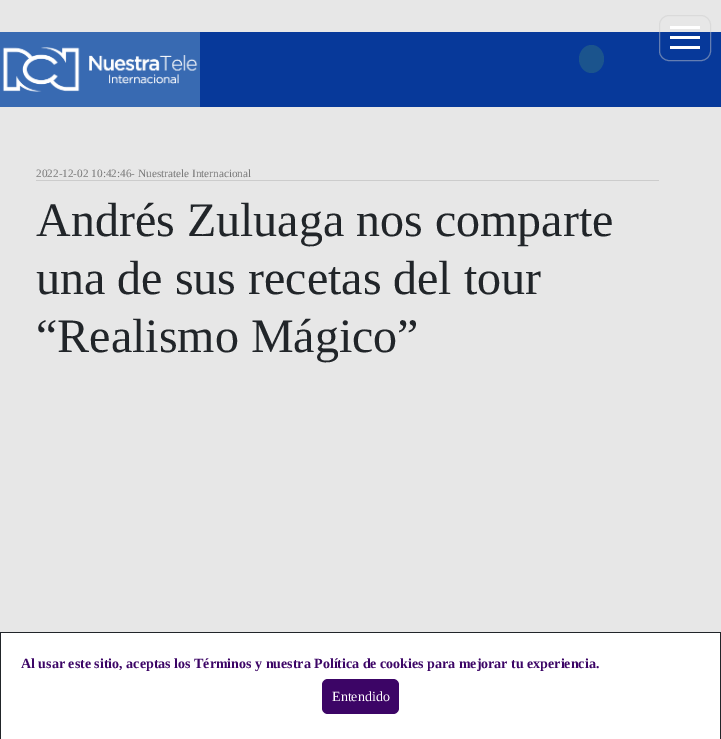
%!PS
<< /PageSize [721 739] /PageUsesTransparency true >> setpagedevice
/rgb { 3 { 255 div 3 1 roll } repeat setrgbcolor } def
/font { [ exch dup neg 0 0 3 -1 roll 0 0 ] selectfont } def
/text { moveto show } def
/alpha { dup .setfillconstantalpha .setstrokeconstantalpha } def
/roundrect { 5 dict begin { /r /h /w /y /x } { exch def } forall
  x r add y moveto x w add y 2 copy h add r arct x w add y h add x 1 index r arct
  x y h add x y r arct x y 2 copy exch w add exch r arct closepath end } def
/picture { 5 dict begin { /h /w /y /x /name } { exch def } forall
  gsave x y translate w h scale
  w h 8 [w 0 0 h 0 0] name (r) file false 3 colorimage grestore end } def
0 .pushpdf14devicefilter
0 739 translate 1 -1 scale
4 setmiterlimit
231 231 231 rgb
0 0 721 739 rectfill
7 57 154 rgb
200 32 521 75 rectfill
(img_01.rgb) 0 32 200 75 picture
27 84 141 rgb
591.5 45 moveto 7 0 12.5 6.5 12.5 14 rcurveto 0 7.5 -5.5 14 -12.5 14 rcurveto -7 0 -12.5 -6.5 -12.5 -14 rcurveto 0 -7.5 5.5 -14 12.5 -14 rcurveto closepath fill
0.47 alpha
204 204 204 rgb
659.5 15.5 51 45 9.5 roundrect stroke
1 alpha
255 255 255 rgb
670 46 30 3 rectfill
670 36 30 3 rectfill
670 26 30 3 rectfill
204 204 204 rgb
36 180 623 1 rectfill
255 255 255 rgb
1 633 719 106 rectfill
33 37 41 rgb
0 632 721 1 rectfill
720 632 1 107 rectfill
0 632 1 107 rectfill
60 5 102 rgb
322 679 77 35 6 roundrect fill
/LiberationSerif-Regular 11.25 font
121 121 121 rgb
(2022-12-02 10:42:46- Nuestratele Internacional) 36 177 text
/LiberationSerif-Regular 48 font
33 37 41 rgb
(Andrés Zuluaga nos comparte) 36 236 text
(una de sus recetas del tour) 36 294 text
(“Realismo Mágico”) 36 352 text
/LiberationSerif-Bold 14 font
60 5 102 rgb
(Al usar este sitio, aceptas los Términos y nuestra Política de cookies para mejorar tu experiencia.) 21 668 text
/LiberationSerif-Regular 14 font
255 255 255 rgb
(Entendido) 332 701 text
.poppdf14devicefilter showpage
